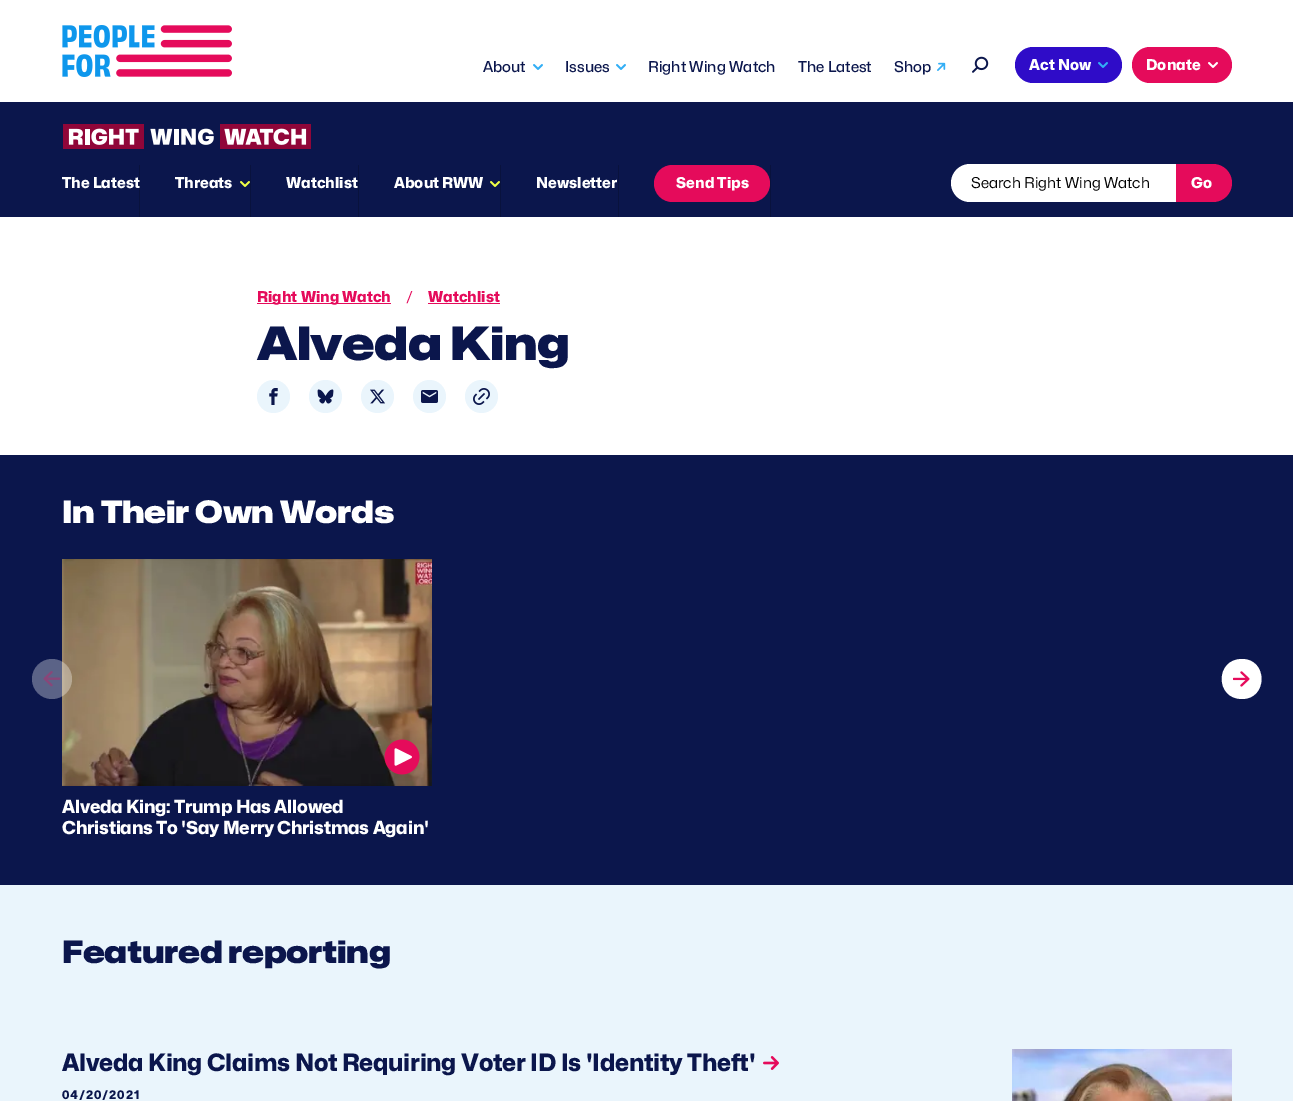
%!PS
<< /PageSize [1293 1101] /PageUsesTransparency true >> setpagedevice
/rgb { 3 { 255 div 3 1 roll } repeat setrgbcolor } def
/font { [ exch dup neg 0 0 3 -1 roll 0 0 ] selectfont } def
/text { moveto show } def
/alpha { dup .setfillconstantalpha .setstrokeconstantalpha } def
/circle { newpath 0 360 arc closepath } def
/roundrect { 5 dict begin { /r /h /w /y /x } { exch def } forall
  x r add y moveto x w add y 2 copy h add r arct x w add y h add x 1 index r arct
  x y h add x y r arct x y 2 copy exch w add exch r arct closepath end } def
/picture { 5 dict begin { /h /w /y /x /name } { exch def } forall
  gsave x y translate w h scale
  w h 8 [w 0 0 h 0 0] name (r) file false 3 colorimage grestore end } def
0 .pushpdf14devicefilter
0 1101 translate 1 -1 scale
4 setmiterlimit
255 255 255 rgb
0 0 1293 1101 rectfill
(img_01.rgb) 62 25 170 52 picture
(img_02.rgb) 533 64 10 6 picture
(img_02.rgb) 616 64 10 6 picture
(img_03.rgb) 937 62 9 9 picture
(img_04.rgb) 972 56 17 17 picture
47 12 200 rgb
1015 47 107 36 18 roundrect fill
(img_05.rgb) 1098 62 10 6 picture
229 11 91 rgb
1132 47 100 36 18 roundrect fill
(img_06.rgb) 1208 62 10 6 picture
11 22 76 rgb
0 102 1293 115 rectfill
(img_07.rgb) 63 124 248 25 picture
9 18 61 rgb
139 165 1 52 rectfill
250 165 1 52 rectfill
(img_08.rgb) 240 181 10 6 picture
358 165 1 52 rectfill
500 165 1 52 rectfill
(img_08.rgb) 490 181 10 6 picture
618 165 1 52 rectfill
770 165 1 52 rectfill
229 11 91 rgb
654 165 116 37 18.5 roundrect fill
255 255 255 rgb
970 164 moveto 206 0 rlineto 0 38 rlineto -206 0 rlineto -10.5 0 -19 -8.5 -19 -19 rcurveto 0 -10.5 8.5 -19 19 -19 rcurveto closepath fill
229 11 91 rgb
1176 164 moveto 37 0 rlineto 10.5 0 19 8.5 19 19 rcurveto 0 10.5 -8.5 19 -19 19 rcurveto -37 0 rlineto closepath fill
257 303 134 1 rectfill
428 303 72 1 rectfill
234 245 252 rgb
273.5 396.5 16.5 circle fill
(img_09.rgb) 269 388 9 17 picture
325.5 396.5 16.5 circle fill
(img_10.rgb) 317 389 17 15 picture
377.5 396.5 16.5 circle fill
(img_11.rgb) 370 389 15 15 picture
429.5 396.5 16.5 circle fill
(img_12.rgb) 421 390 17 13 picture
481.5 396.5 16.5 circle fill
(img_13.rgb) 473 388 17 17 picture
11 22 76 rgb
0 455 1293 430 rectfill
(img_16.rgb) 62 559 370 227 picture
0.33 alpha
255 255 255 rgb
52 679 20 circle fill
1 alpha
(img_14.rgb) 43 671 18 16 picture
1242 699 moveto -27 0 -27 -40 0 -40 rcurveto 26 0 26 40 0 40 rcurveto closepath fill
(img_15.rgb) 1233 671 17 16 picture
(img_17.rgb) 384 739 36 36 picture
234 245 252 rgb
0 885 1293 216 rectfill
(img_18.rgb) 763 1056 16 14 picture
(img_19.rgb) 1012 1049 220 52 picture
/MonaSans-Medium 15 font
11 22 76 rgb
(About) 483 72 text
(Issues) 565 72 text
(Right Wing Watch) 648 72 text
(The Latest) 798 72 text
(Shop) 894 72 text
/MonaSans-ExtraBold 15 font
255 255 255 rgb
(Act Now) 1029 70 text
(Donate) 1146 70 text
(The Latest) 62 188 text
(Threats) 175 188 text
(Watchlist) 286 188 text
(About RWW) 394 188 text
(Newsletter) 536 188 text
(Send Tips) 676 188 text
/MonaSans-Regular 15 font
0 0 0 rgb
(Search Right Wing Watch) 971 188 text
/MonaSans-ExtraBold 15 font
255 255 255 rgb
(Go) 1191 188 text
229 11 91 rgb
(Right Wing Watch) 257 302 text
/MonaSans-Regular 15 font
(/) 406 302 text
/MonaSans-ExtraBold 15 font
(Watchlist) 428 302 text
/MonaSans-Black 46 font
11 22 76 rgb
257 360 moveto -0.5 0 (Alveda King) ashow
/MonaSans-Black 31 font
255 255 255 rgb
62 523 moveto -0.3 0 (In Their Own Words) ashow
/MonaSans-ExtraBold 18 font
62 813 moveto -0.25 0 (Alveda King: Trump Has Allowed) ashow
62 834 moveto -0.25 0 (Christians To 'Say Merry Christmas Again') ashow
/MonaSans-Black 31 font
11 22 76 rgb
62 963 moveto -0.3 0 (Featured reporting) ashow
/MonaSans-ExtraBold 24 font
62 1071 moveto -0.25 0 (Alveda King Claims Not Requiring Voter ID Is 'Identity Theft') ashow
/MonaSans-ExtraBold 12 font
62 1099 moveto 0.75 0 (04/20/2021) ashow
.poppdf14devicefilter showpage
